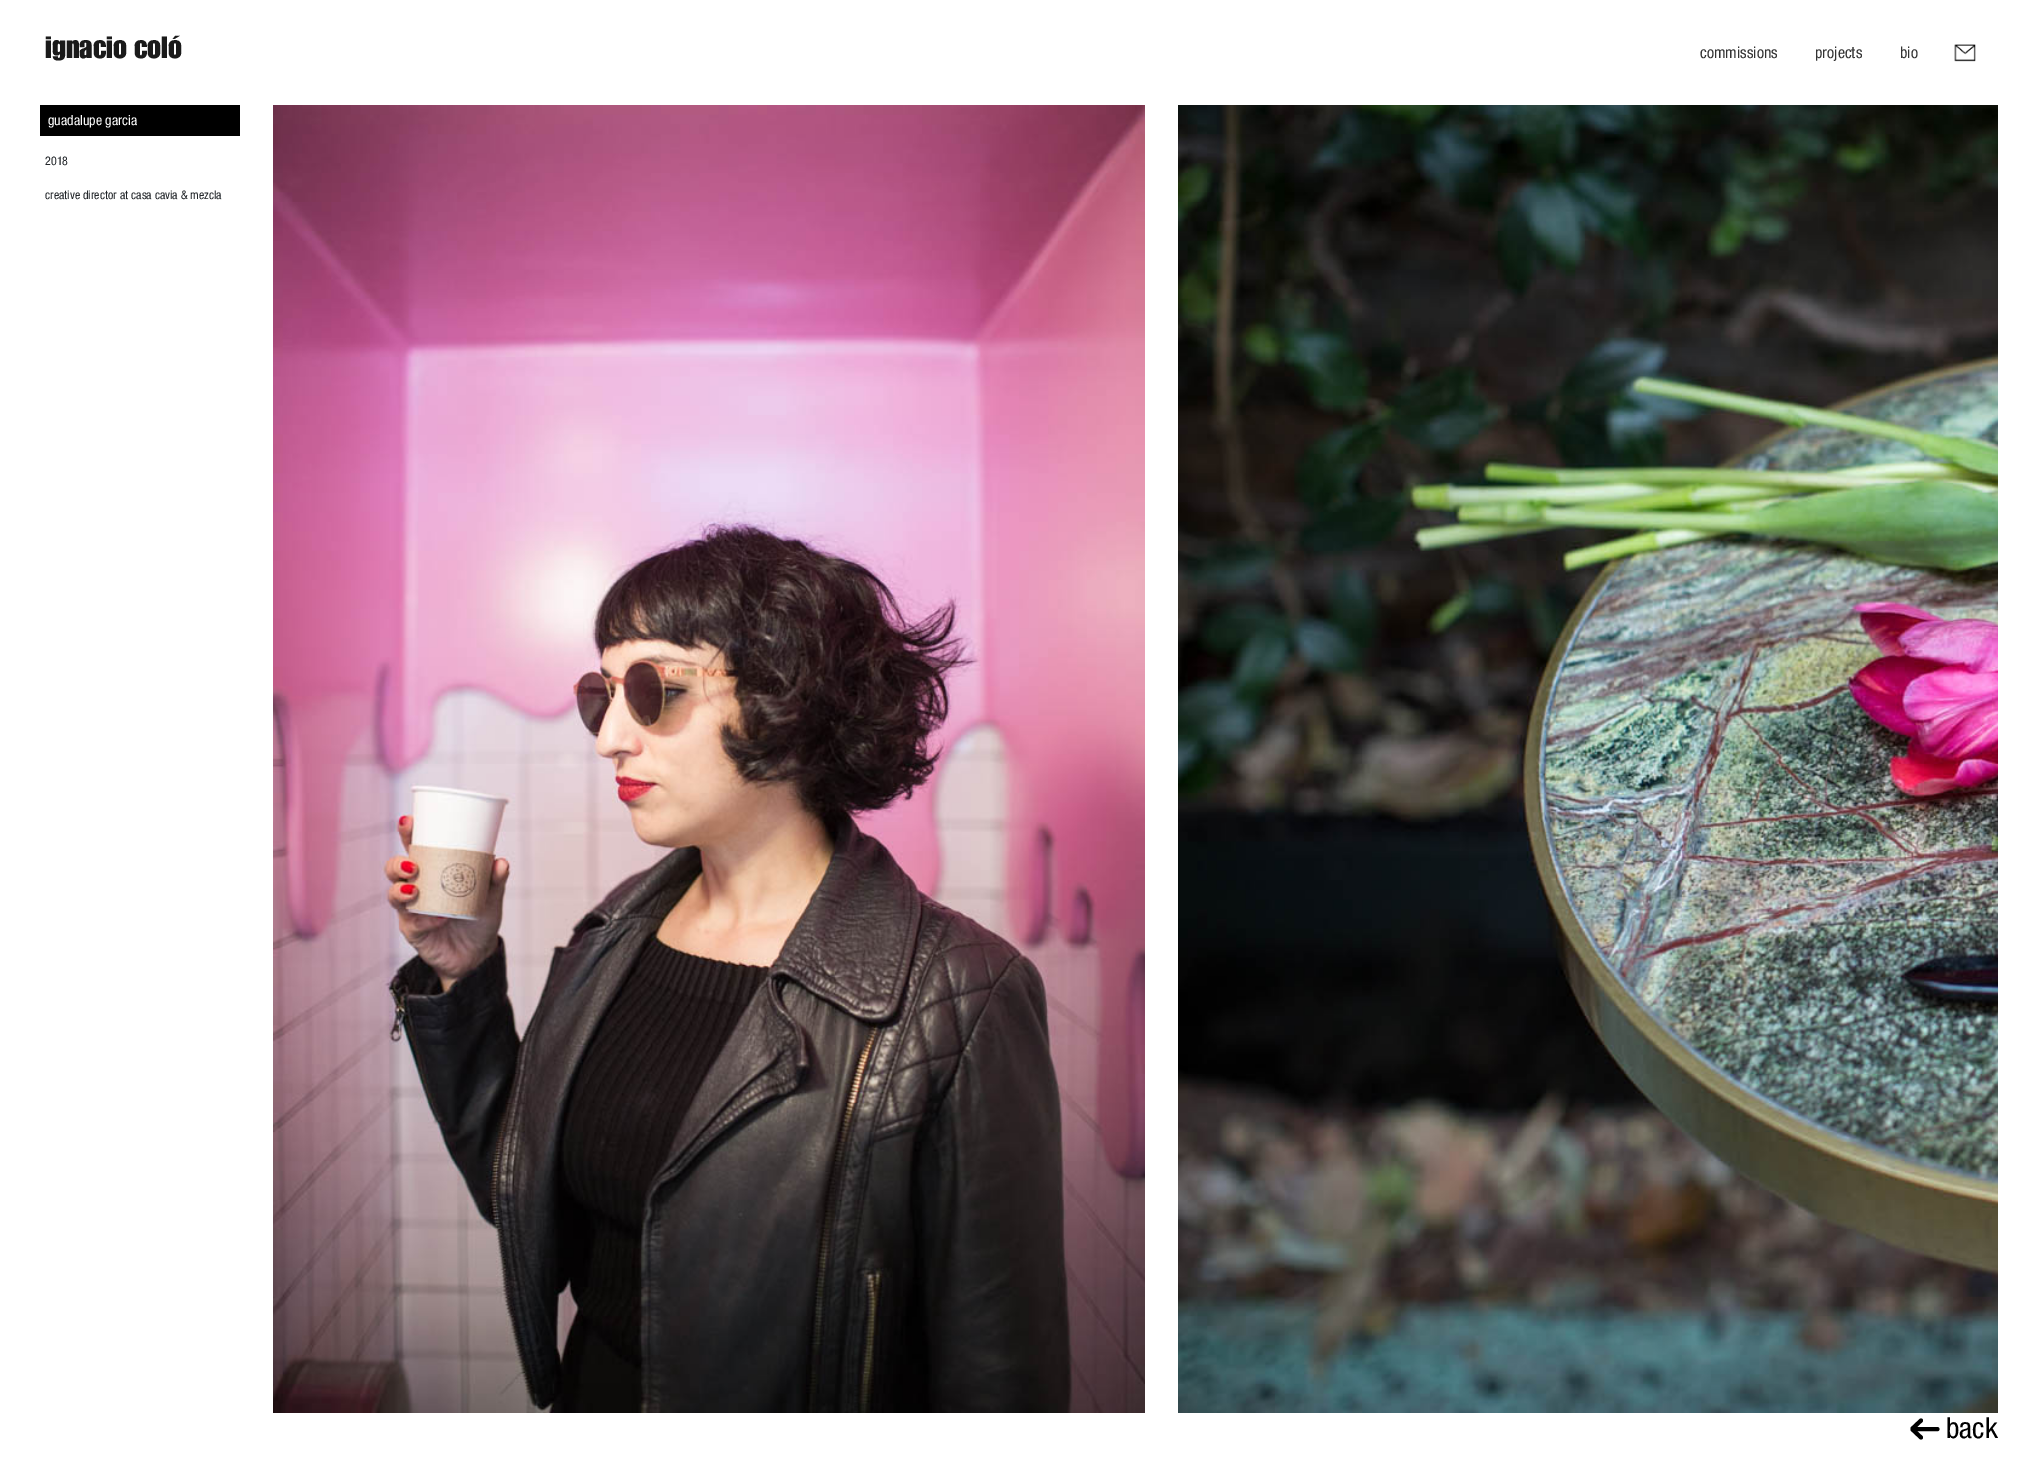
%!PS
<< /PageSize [2038 1475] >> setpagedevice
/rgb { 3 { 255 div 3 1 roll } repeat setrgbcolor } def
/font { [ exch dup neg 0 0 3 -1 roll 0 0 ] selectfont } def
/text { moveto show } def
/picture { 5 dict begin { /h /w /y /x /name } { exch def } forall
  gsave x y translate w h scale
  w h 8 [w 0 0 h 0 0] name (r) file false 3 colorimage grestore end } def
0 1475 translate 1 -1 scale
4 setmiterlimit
255 255 255 rgb
0 0 2038 1475 rectfill
(img_01.rgb) 1954 44 22 18 picture
0 0 0 rgb
40 105 200 31 rectfill
(img_02.rgb) 273 105 872 1308 picture
(img_03.rgb) 1178 105 820 1308 picture
4 setlinewidth
1 setlinecap
1 setlinejoin
1912.5 1428.5 moveto 8.5 -8 rlineto 1921 1437.5 moveto -8.5 -8 rlineto stroke
0 setlinejoin
1937.5 1429 moveto -24 0 rlineto stroke
/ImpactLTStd-Bold 30 font
26 26 26 rgb
(ignacio coló) 45 58 text
/HelveticaNeue-Medium 16 font
51 51 51 rgb
(commissions) 1700 58 text
(projects) 1815 58 text
(bio) 1900 58 text
/HelveticaNeue-Medium 14 font
255 255 255 rgb
(guadalupe garcia) 48 125 text
/HelveticaNeue-Medium 12 font
33 37 41 rgb
(2018) 45 165 text
(creative director at casa cavia & mezcla) 45 199 text
/HelveticaNeue-Medium 29 font
0 0 0 rgb
(back) 1946 1438 text
showpage
